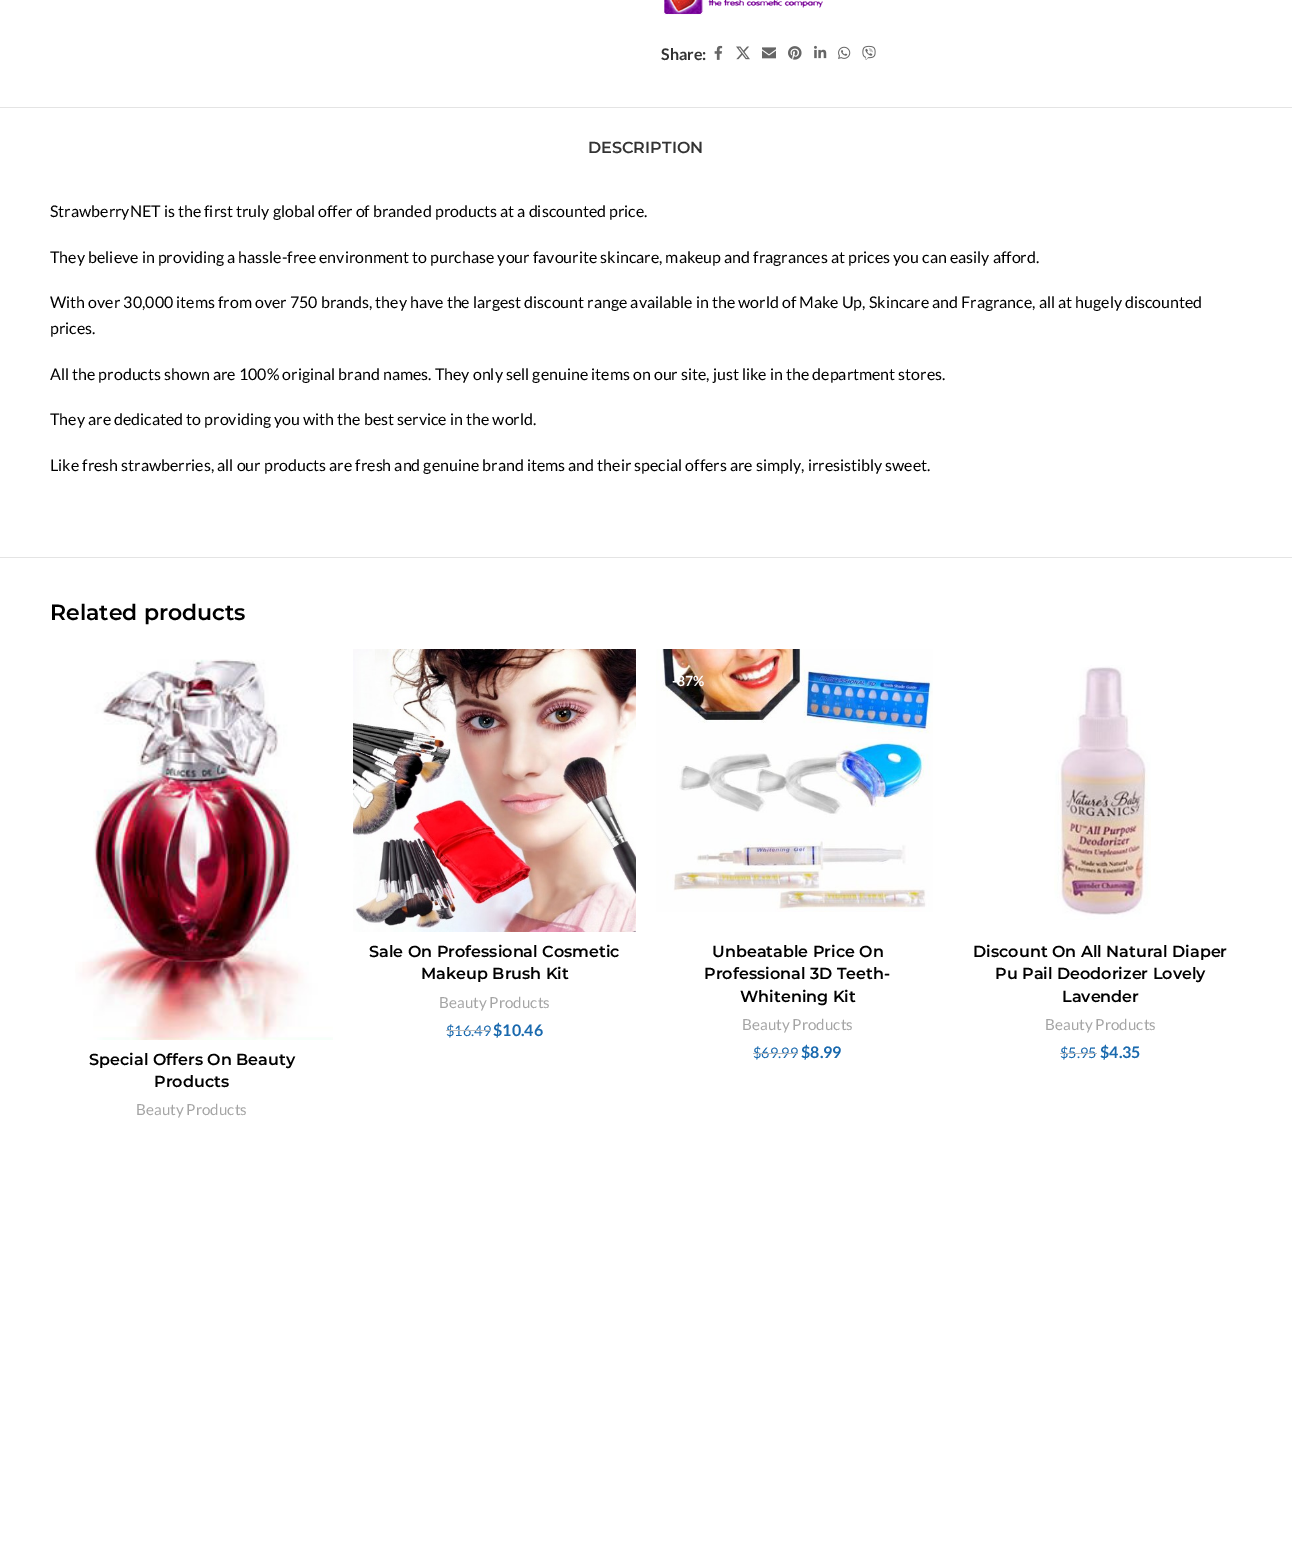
%!PS
<< /PageSize [1292 1541] >> setpagedevice
/rgb { 3 { 255 div 3 1 roll } repeat setrgbcolor } def
/font { [ exch dup neg 0 0 3 -1 roll 0 0 ] selectfont } def
/text { moveto show } def
/picture { 5 dict begin { /h /w /y /x /name } { exch def } forall
  gsave x y translate w h scale
  w h 8 [w 0 0 h 0 0] name (r) file false 3 colorimage grestore end } def
0 1541 translate 1 -1 scale
4 setmiterlimit
255 255 255 rgb
0 0 1292 1541 rectfill
(img_01.rgb) 663 0 160 15 picture
(img_02.rgb) 714 45 9 15 picture
(img_03.rgb) 736 46 14 14 picture
(img_04.rgb) 762 47 14 12 picture
(img_05.rgb) 788 46 14 14 picture
(img_06.rgb) 814 45 13 14 picture
(img_07.rgb) 838 46 13 13 picture
(img_08.rgb) 862 45 14 15 picture
228 228 228 rgb
0 107 1292 1 rectfill
0 557 1292 1 rectfill
(img_09.rgb) 353 649 283 283 picture
(img_10.rgb) 656 649 277 263 picture
(img_11.rgb) 1054 665 97 255 picture
(img_12.rgb) 75 659 258 381 picture
/Lato-Bold 16 font
51 51 51 rgb
(Share:) 661 60 text
/Montserrat-SemiBold 16 font
(DESCRIPTION) 588 153 text
/Lato-Regular 16 font
0 0 0 rgb
(StrawberryNET is the first truly global offer of branded products at a discounted price.) 50 217 text
(They believe in providing a hassle-free environment to purchase your favourite skincare, makeup and fragrances at prices you can easily afford.) 50 263 text
(With over 30,000 items from over 750 brands, they have the largest discount range available in the world of Make Up, Skincare and Fragrance, all at hugely discounted) 50 308 text
(prices.) 50 334 text
(All the products shown are 100% original brand names. They only sell genuine items on our site, just like in the department stores.) 50 380 text
(They are dedicated to providing you with the best service in the world.) 50 425 text
(Like fresh strawberries, all our products are fresh and genuine brand items and their special offers are simply, irresistibly sweet.) 50 471 text
/Montserrat-SemiBold 22 font
(Related products) 50 620 text
/Montserrat-SemiBold 16 font
(Sale On Professional Cosmetic) 369 957 text
(Makeup Brush Kit) 421 979 text
/Lato-Regular 15.25 font
165 165 165 rgb
(Beauty Products) 439 1008 text
/Lato-Regular 14.5 font
25 105 174 rgb
($16.49) 446 1036 text
187 187 187 rgb
446 1030 44 1 rectfill
/Lato-Bold 16 font
25 105 174 rgb
($10.46) 493 1036 text
/Lato-Bold 14 font
255 255 255 rgb
(-87%) 672 686 text
/Montserrat-SemiBold 16 font
0 0 0 rgb
(Unbeatable Price On) 712 957 text
(Professional 3D Teeth-) 704 979 text
(Whitening Kit) 740 1002 text
/Lato-Regular 15.25 font
165 165 165 rgb
(Beauty Products) 742 1030 text
/Lato-Regular 14.5 font
25 105 174 rgb
($69.99) 753 1058 text
187 187 187 rgb
753 1053 45 1 rectfill
/Lato-Bold 16 font
25 105 174 rgb
($8.99) 801 1058 text
/Montserrat-SemiBold 16 font
0 0 0 rgb
(Discount On All Natural Diaper) 973 957 text
(Pu Pail Deodorizer Lovely) 995 979 text
(Lavender) 1062 1002 text
/Lato-Regular 15.25 font
165 165 165 rgb
(Beauty Products) 1045 1030 text
/Lato-Regular 14.5 font
25 105 174 rgb
($5.95) 1060 1058 text
187 187 187 rgb
1060 1053 37 1 rectfill
/Lato-Bold 16 font
25 105 174 rgb
($4.35) 1100 1058 text
/Montserrat-SemiBold 16 font
0 0 0 rgb
(Special Offers On Beauty) 89 1065 text
(Products) 154 1087 text
/Lato-Regular 15.25 font
165 165 165 rgb
(Beauty Products) 136 1115 text
showpage
